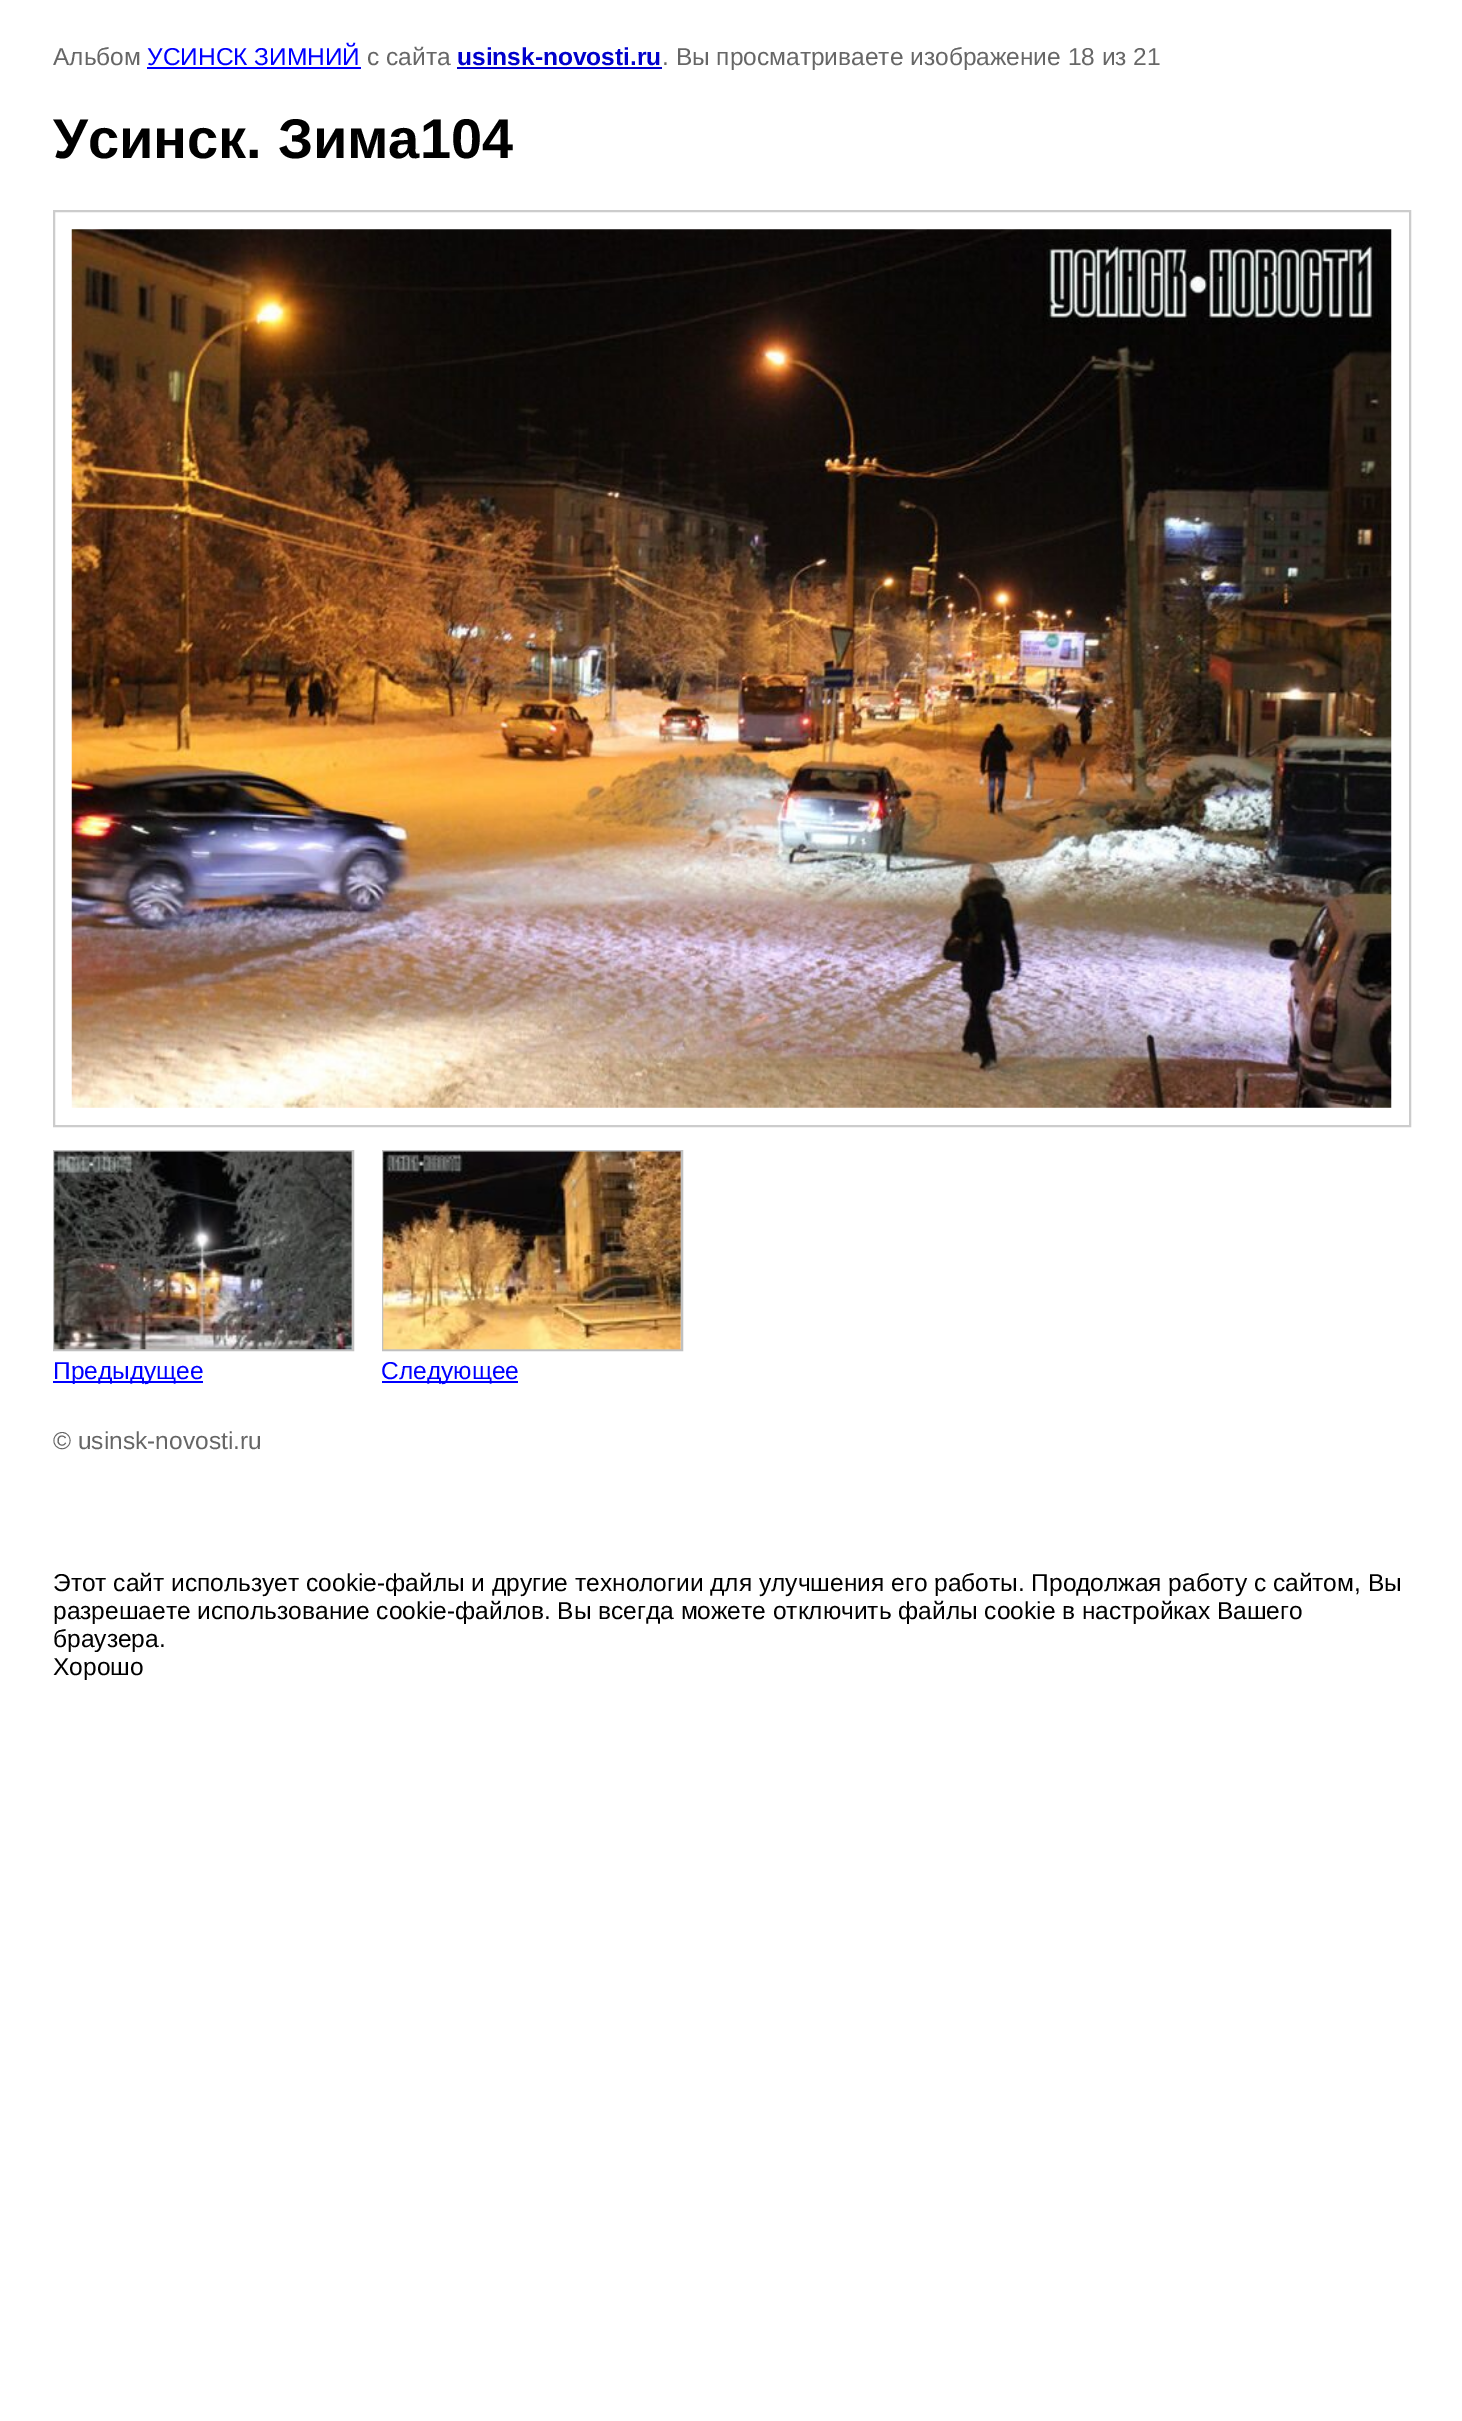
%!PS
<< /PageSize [1462 2421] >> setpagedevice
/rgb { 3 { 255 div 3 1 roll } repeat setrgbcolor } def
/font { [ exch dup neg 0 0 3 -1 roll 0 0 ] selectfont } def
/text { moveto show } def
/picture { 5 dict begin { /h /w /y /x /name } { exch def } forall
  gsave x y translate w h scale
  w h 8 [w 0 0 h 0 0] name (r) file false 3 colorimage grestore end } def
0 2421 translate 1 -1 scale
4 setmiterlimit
255 255 255 rgb
0 0 1462 2421 rectfill
0 0 255 rgb
147 67 214 2 rectfill
0 0 204 rgb
457 67 205 2 rectfill
204 204 204 rgb
2 setlinewidth
54 211 1356 915 rectstroke
(img_01.rgb) 71 229 1321 879 picture
192 192 192 rgb
54 1151 299 199 rectstroke
(img_02.rgb) 54 1151 298 199 picture
0 0 255 rgb
53 1381 150 2 rectfill
192 192 192 rgb
383 1151 299 199 rectstroke
(img_03.rgb) 383 1151 298 199 picture
0 0 255 rgb
382 1381 136 2 rectfill
/LiberationSans-Regular 24.5 font
102 102 102 rgb
(Альбом) 53 65 text
0 0 255 rgb
(УСИНСК ЗИМНИЙ) 147 65 text
102 102 102 rgb
(с сайта) 367 65 text
/LiberationSans-Bold 24.5 font
0 0 204 rgb
(usinsk-novosti.ru) 457 65 text
/LiberationSans-Regular 24.5 font
102 102 102 rgb
(. Вы просматриваете изображение 18 из 21) 662 65 text
/LiberationSans-Bold 56 font
0 0 0 rgb
(Усинск. Зима104) 53 158 text
/LiberationSans-Regular 24.5 font
0 0 255 rgb
(Предыдущее) 53 1379 text
(Следующее) 381 1379 text
102 102 102 rgb
(© usinsk-novosti.ru) 53 1449 text
0 0 0 rgb
(Этот сайт использует cookie-файлы и другие технологии для улучшения его работы. Продолжая работу с сайтом, Вы) 53 1591 text
(разрешаете использование cookie-файлов. Вы всегда можете отключить файлы cookie в настройках Вашего) 53 1619 text
(браузера.) 53 1647 text
255 255 255 rgb
68 1652 67 1 rectfill
0 0 0 rgb
(Хорошо) 53 1675 text
showpage
